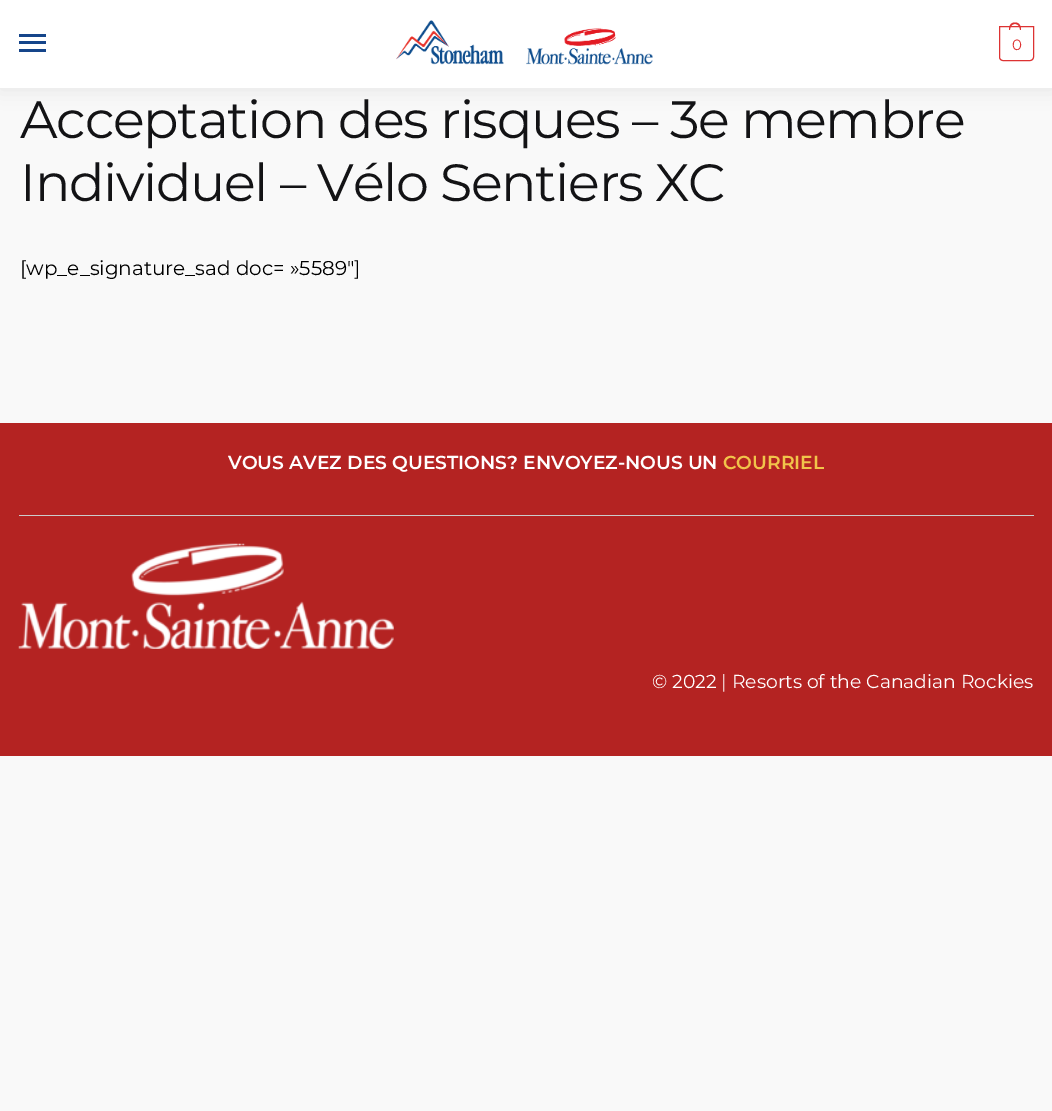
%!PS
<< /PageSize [1052 1111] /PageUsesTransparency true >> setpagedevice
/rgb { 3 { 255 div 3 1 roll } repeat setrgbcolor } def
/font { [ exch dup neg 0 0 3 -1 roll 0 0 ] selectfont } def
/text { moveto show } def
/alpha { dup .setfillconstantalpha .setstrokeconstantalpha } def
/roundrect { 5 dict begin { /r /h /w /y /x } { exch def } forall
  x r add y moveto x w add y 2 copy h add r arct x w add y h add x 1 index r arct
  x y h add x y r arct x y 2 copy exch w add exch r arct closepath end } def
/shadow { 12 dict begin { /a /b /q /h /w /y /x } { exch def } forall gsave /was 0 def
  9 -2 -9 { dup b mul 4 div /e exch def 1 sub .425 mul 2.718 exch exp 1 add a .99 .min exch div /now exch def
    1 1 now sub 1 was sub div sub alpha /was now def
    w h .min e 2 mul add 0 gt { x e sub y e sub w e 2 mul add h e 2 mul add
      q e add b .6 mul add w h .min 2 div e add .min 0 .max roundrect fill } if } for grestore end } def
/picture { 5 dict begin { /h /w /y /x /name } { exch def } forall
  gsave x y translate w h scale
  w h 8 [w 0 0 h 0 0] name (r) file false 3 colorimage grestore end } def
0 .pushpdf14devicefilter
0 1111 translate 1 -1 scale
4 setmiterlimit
249 249 249 rgb
0 0 1052 1111 rectfill
0 0 0 rgb
0 1 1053 88 0 9.5 0.08 shadow
255 255 255 rgb
0 0 1052 88 rectfill
21 69 138 rgb
19 34 27 3 rectfill
19 41 27 3 rectfill
19 49 27 3 rectfill
(img_01.rgb) 396 20 257 45 picture
221 51 51 rgb
999.5 26.5 moveto 34 0 rlineto 0 30.5 rlineto 0 2 -1.5 3.5 -3.5 3.5 rcurveto -27 0 rlineto -2 0 -3.5 -1.5 -3.5 -3.5 rcurveto closepath stroke
1015 22.5 moveto 4.5 0 6 3.5 6 7.5 rcurveto -12 0 rlineto 0 -4 1.5 -7.5 6 -7.5 rcurveto closepath 1015 24 moveto 3.5 0 5 3 5 6 rcurveto -10 0 rlineto 0 -3 1.5 -6 5 -6 rcurveto closepath eofill
180 35 34 rgb
0 423 1052 333 rectfill
204 204 204 rgb
19 515 1015 1 rectfill
(img_02.rgb) 18 543 376 106 picture
/Montserrat-Regular 15 font
221 51 51 rgb
1012 50 moveto -1 0 (0) ashow
/Montserrat-Regular 52.4 font
19 19 21 rgb
20 138 moveto -1.25 0 (Acceptation des risques – 3e membre) ashow
20 201 moveto -1.25 0 (Individuel – Vélo Sentiers XC) ashow
/Montserrat-Regular 20 font
0 0 0 rgb
([wp_e_signature_sad doc= »5589″]) 20 275 text
/Montserrat-SemiBold 18.75 font
255 255 255 rgb
(VOUS AVEZ DES QUESTIONS? ENVOYEZ-NOUS UN) 228 469 text
241 196 74 rgb
(COURRIEL) 723 469 text
/Montserrat-Regular 18.75 font
255 255 255 rgb
(© 2022 | Resorts of the Canadian Rockies) 652 688 text
.poppdf14devicefilter showpage
